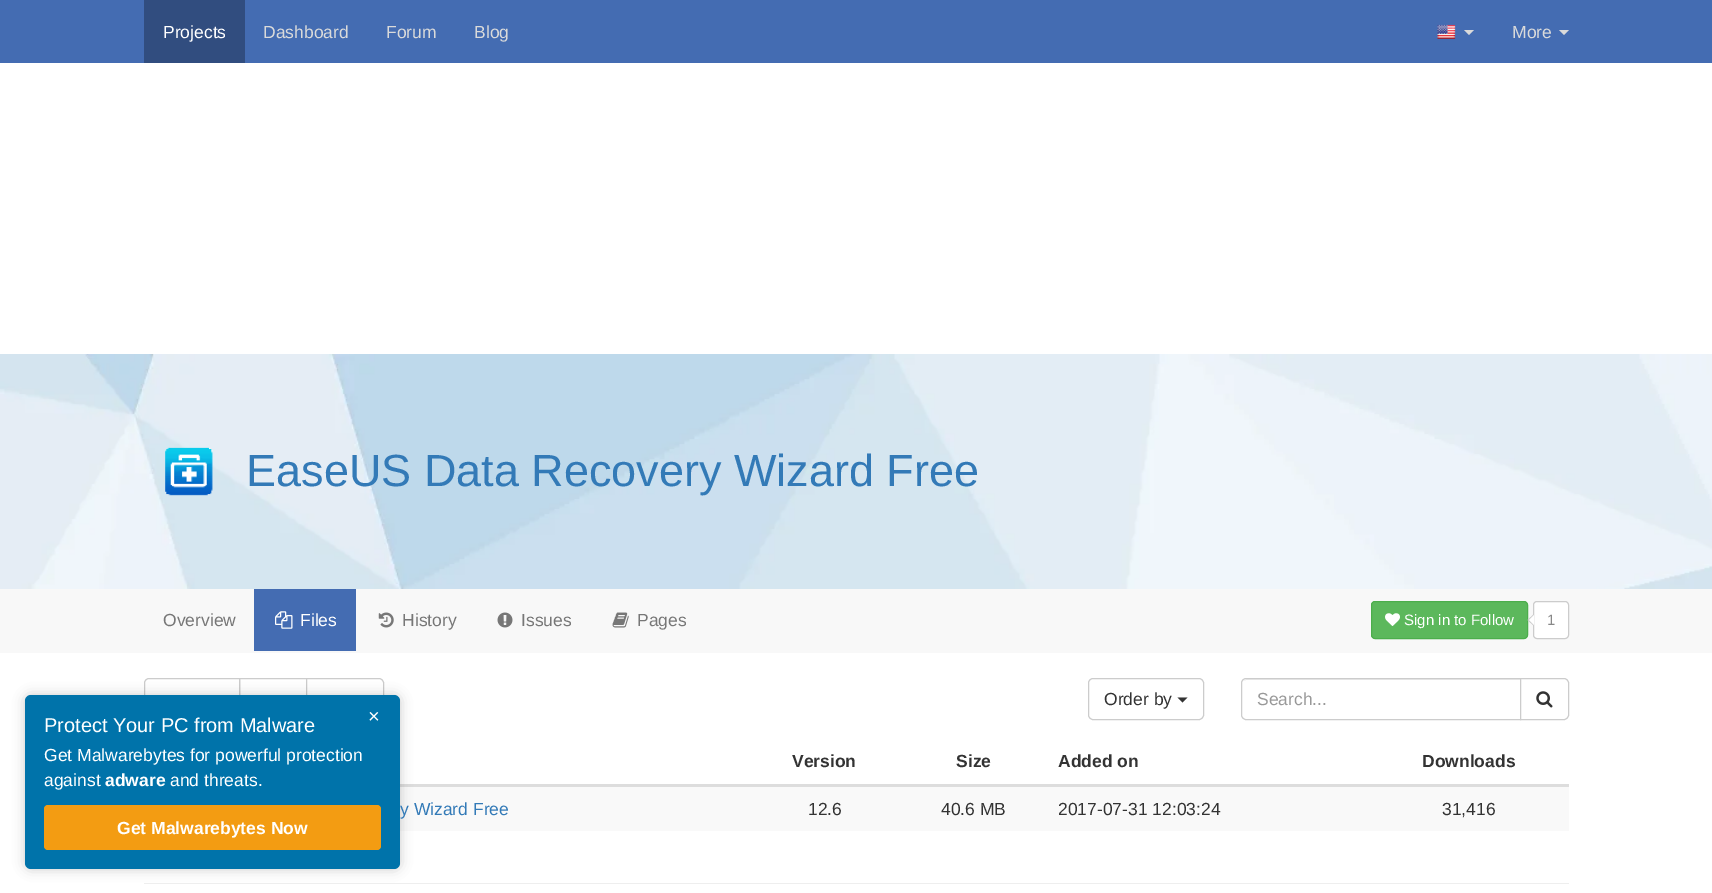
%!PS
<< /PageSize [1712 893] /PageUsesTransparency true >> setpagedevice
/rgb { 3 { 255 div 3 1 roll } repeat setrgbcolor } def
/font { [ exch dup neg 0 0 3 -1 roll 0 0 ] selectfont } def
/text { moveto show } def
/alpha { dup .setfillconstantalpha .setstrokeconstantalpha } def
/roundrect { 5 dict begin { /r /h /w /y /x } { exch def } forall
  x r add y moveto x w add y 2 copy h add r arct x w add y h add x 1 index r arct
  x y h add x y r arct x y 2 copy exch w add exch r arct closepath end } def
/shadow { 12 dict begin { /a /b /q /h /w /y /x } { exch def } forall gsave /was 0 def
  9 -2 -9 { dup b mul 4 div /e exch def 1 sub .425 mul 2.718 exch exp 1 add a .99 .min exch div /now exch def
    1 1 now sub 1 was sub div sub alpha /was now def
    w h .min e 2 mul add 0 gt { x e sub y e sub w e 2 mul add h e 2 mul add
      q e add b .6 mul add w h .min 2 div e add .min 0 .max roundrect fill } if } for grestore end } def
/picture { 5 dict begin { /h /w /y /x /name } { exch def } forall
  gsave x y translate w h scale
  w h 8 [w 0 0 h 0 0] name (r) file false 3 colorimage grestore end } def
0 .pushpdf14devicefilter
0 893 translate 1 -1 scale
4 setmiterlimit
255 255 255 rgb
0 0 1712 893 rectfill
68 108 178 rgb
0 0 1712 63 rectfill
49 77 127 rgb
144 0 101 63 rectfill
(img_01.rgb) 1437 24 19 15 picture
218 218 218 rgb
1464 30 moveto 10 0 rlineto -5 5 rlineto closepath fill
1559 30 moveto 10 0 rlineto -5 5 rlineto closepath fill
(img_02.rgb) 0 354 1712 235 picture
(img_03.rgb) 165 447 48 49 picture
248 248 248 rgb
0 589 1712 64 rectfill
68 108 178 rgb
254 589 102 62 rectfill
(img_04.rgb) 275 611 18 18 picture
(img_05.rgb) 378 612 16 16 picture
(img_06.rgb) 497 612 16 16 picture
(img_07.rgb) 612 612 17 16 picture
92 184 92 rgb
1371.5 601.5 156 37 3.5 roundrect gsave fill grestore
76 174 76 rgb
stroke
(img_08.rgb) 1385 613 15 13 picture
255 255 255 rgb
1533.5 601.5 35 37 3.5 roundrect gsave fill grestore
204 204 204 rgb
stroke
1534 614 moveto 0 12 rlineto -6.5 -6 rlineto closepath fill
255 255 255 rgb
1534 615 moveto 0 10 rlineto -5 -5 rlineto closepath fill
204 204 204 rgb
149 678.5 moveto 90.5 0 rlineto 0 41 rlineto -90.5 0 rlineto -2.5 0 -4.5 -2 -4.5 -4.5 rcurveto 0 -32 rlineto 0 -2.5 2 -4.5 4.5 -4.5 rcurveto closepath stroke
239.5 678.5 68 41 rectstroke
255 255 255 rgb
306.5 678.5 moveto 72.5 0 rlineto 2.5 0 4.5 2 4.5 4.5 rcurveto 0 32 rlineto 0 2.5 -2 4.5 -4.5 4.5 rcurveto -72.5 0 rlineto closepath gsave fill grestore
204 204 204 rgb
stroke
221 221 221 rgb
400 784 1169 3 rectfill
249 249 249 rgb
400 787 1169 44 rectfill
238 238 238 rgb
144 883 1425 1 rectfill
0 0 0 rgb
25 695 375 174 6 6 0.2 shadow
0 115 170 rgb
25 695 375 174 6 roundrect fill
243 156 18 rgb
44 805 337 45 4 roundrect fill
204 204 204 rgb
1088.5 678.5 115 41 4.5 roundrect stroke
51 51 51 rgb
1177.5 697.5 moveto 10 0 rlineto -5 5 rlineto closepath fill
236 236 236 rgb
1246 680 moveto 274 0 rlineto 0 -1 rlineto -274 0 rlineto -2 2 rlineto closepath fill
204 204 204 rgb
1246 678.5 moveto 274.5 0 rlineto 0 41 rlineto -274.5 0 rlineto -2.5 0 -4.5 -2 -4.5 -4.5 rcurveto 0 -32 rlineto 0 -2.5 2 -4.5 4.5 -4.5 rcurveto closepath stroke
255 255 255 rgb
1520.5 678.5 moveto 43.5 0 rlineto 2.5 0 4.5 2 4.5 4.5 rcurveto 0 32 rlineto 0 2.5 -2 4.5 -4.5 4.5 rcurveto -43.5 0 rlineto closepath gsave fill grestore
204 204 204 rgb
stroke
(img_09.rgb) 1536 691 17 17 picture
/LiberationSans-Regular 17.5 font
255 255 255 rgb
(Projects) 163 38 text
218 218 218 rgb
(Dashboard) 263 38 text
(Forum) 386 38 text
(Blog) 474 38 text
(More) 1512 38 text
/LiberationSans-Regular 45 font
51 122 183 rgb
(EaseUS Data Recovery Wizard Free) 246 486 text
/LiberationSans-Regular 17.5 font
119 119 119 rgb
(Overview) 163 626 text
255 255 255 rgb
(Files) 300 626 text
119 119 119 rgb
(History) 402 626 text
(Issues) 521 626 text
(Pages) 637 626 text
/LiberationSans-Regular 15 font
255 255 255 rgb
(Sign in to Follow) 1404 625 text
136 136 136 rgb
(1) 1547 625 text
/LiberationSans-Regular 20 font
255 255 255 rgb
(×) 368 723 text
(Protect Your PC from Malware) 44 732 text
/LiberationSans-Regular 17.5 font
(Get Malwarebytes for powerful protection) 44 761 text
(against) 44 786 text
/LiberationSans-Bold 17.5 font
(adware) 105 786 text
/LiberationSans-Regular 17.5 font
(and threats.) 170 786 text
/LiberationSans-Bold 17.5 font
(Get Malwarebytes Now) 117 834 text
/LiberationSans-Regular 17.5 font
51 51 51 rgb
(Order by) 1104 705 text
153 153 153 rgb
(Search...) 1257 705 text
/LiberationSans-Bold 17.5 font
51 51 51 rgb
(Version) 792 767 text
(Size) 956 767 text
(Added on) 1058 767 text
(Downloads) 1422 767 text
/LiberationSans-Regular 17.5 font
51 122 183 rgb
(y Wizard Free) 400 815 text
51 51 51 rgb
(12.6) 808 815 text
(40.6 MB) 941 815 text
(2017-07-31 12:03:24) 1058 815 text
(31,416) 1442 815 text
.poppdf14devicefilter showpage
